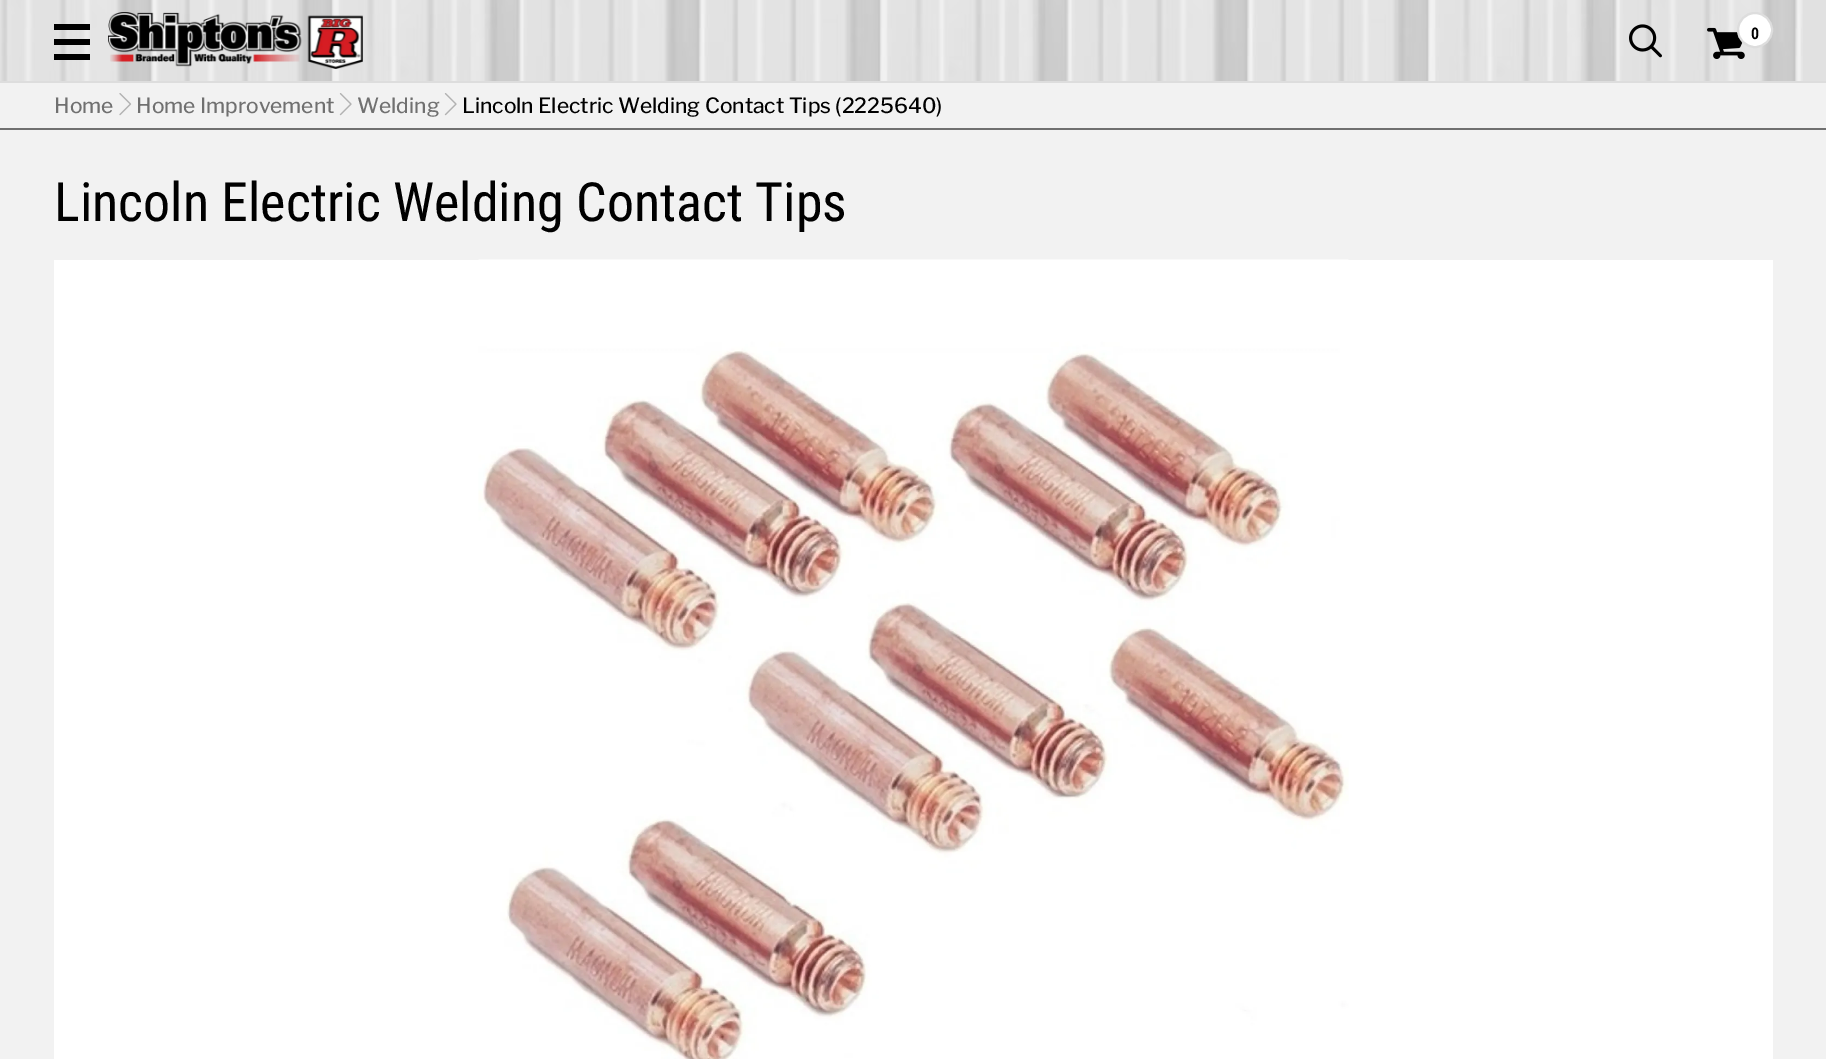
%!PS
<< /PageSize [1826 1059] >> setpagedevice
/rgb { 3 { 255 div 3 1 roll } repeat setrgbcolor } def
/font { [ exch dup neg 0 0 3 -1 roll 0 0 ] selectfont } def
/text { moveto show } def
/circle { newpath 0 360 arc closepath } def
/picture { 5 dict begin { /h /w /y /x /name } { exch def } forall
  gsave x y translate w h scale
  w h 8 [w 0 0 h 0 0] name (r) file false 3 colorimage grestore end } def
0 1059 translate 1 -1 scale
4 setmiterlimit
242 242 242 rgb
0 0 1826 1059 rectfill
225 225 225 rgb
0 0 1826 81 rectfill
(img_01.rgb) 1 0 1802 81 picture
221 221 221 rgb
0 81 1826 2 rectfill
0 0 0 rgb
54 24 36 6 rectfill
54 39 36 6 rectfill
54 54 36 6 rectfill
(img_02.rgb) 108 12 255 57 picture
(img_03.rgb) 1629 24 33 34 picture
(img_04.rgb) 1707 27 38 32 picture
255 255 255 rgb
1755 30 17 circle gsave fill grestore
221 221 221 rgb
2 setlinewidth
stroke
112 112 112 rgb
0 128 1826 2 rectfill
(img_05.rgb) 119 93 13 23 picture
(img_06.rgb) 339 93 13 23 picture
(img_06.rgb) 444 93 13 23 picture
255 255 255 rgb
54 260 1719 799 rectfill
(img_07.rgb) 478 259 871 800 picture
/RobotoCondensed-Bold 16 font
0 0 0 rgb
(0) 1751 39 text
/LibreFranklin-Regular 21 font
112 112 112 rgb
(Home) 54 113 text
(Home Improvement) 136 113 text
(Welding) 357 113 text
0 0 0 rgb
(Lincoln Electric Welding Contact Tips \(2225640\)) 462 113 text
/RobotoCondensed-Regular 54 font
(Lincoln Electric Welding Contact Tips) 54 221 text
showpage
